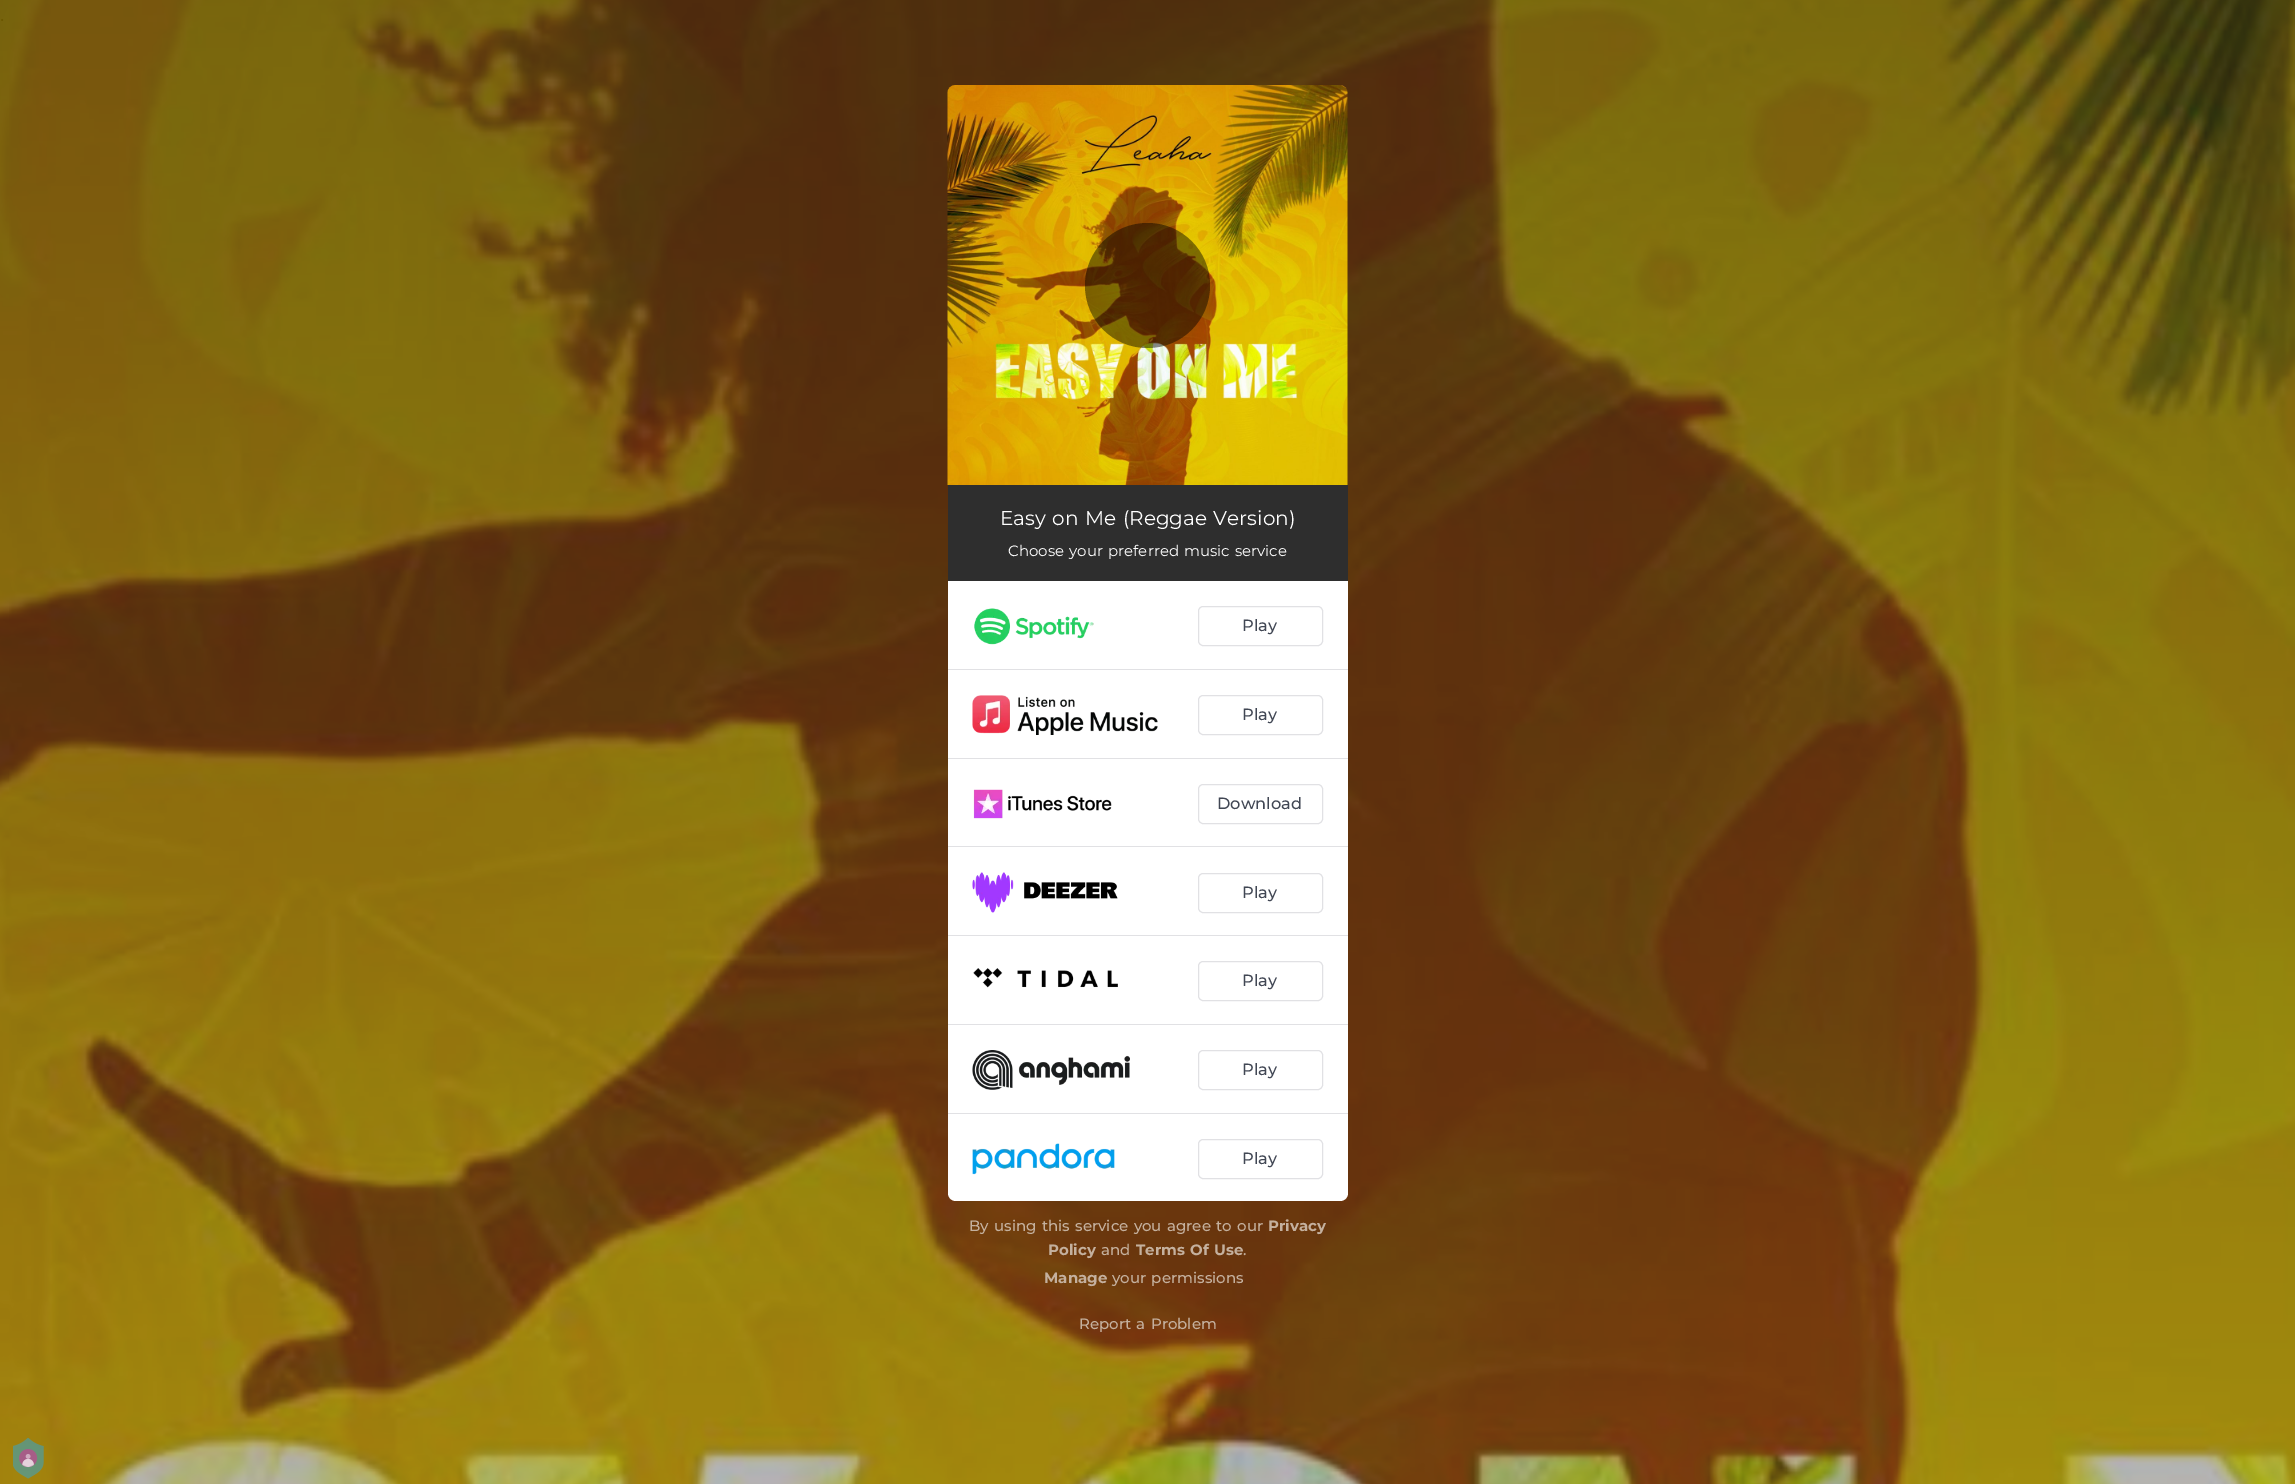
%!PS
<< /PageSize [2295 1484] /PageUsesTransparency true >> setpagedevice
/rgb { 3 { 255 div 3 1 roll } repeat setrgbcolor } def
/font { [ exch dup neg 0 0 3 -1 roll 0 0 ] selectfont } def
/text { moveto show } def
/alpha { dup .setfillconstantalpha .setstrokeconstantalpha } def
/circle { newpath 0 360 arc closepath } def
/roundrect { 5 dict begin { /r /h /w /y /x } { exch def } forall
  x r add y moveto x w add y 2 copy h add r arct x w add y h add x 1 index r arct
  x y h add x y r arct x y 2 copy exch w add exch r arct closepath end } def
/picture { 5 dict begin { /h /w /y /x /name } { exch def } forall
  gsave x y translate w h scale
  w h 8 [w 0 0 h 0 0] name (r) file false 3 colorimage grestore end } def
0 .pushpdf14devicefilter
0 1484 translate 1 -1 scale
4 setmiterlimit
255 255 255 rgb
0 0 2295 1484 rectfill
(img_01.rgb) 0 0 2295 1484 picture
(img_02.rgb) 947 85 401 400 picture
0.45 alpha
0 0 0 rgb
1147.5 285.5 62.5 circle fill
1 alpha
46 46 46 rgb
948 485 400 96 rectfill
255 255 255 rgb
948 581 moveto 400 0 rlineto 0 612 rlineto 0 4.5 -3.5 8 -8 8 rcurveto -384 0 rlineto -4.5 0 -8 -3.5 -8 -8 rcurveto closepath fill
225 225 228 rgb
948 669 400 1 rectfill
(img_03.rgb) 974 608 120 37 picture
1198.5 606.5 124 39 4.5 roundrect stroke
948 758 400 1 rectfill
(img_04.rgb) 972 695 186 40 picture
1198.5 695.5 124 39 4.5 roundrect stroke
948 846 400 1 rectfill
(img_05.rgb) 973 789 139 30 picture
1198.5 784.5 124 39 4.5 roundrect stroke
948 935 400 1 rectfill
(img_06.rgb) 972 872 146 41 picture
1198.5 873.5 124 39 4.5 roundrect stroke
948 1024 400 1 rectfill
(img_07.rgb) 973 968 145 20 picture
1198.5 961.5 124 39 4.5 roundrect stroke
948 1113 400 1 rectfill
(img_08.rgb) 972 1050 158 40 picture
1198.5 1050.5 124 39 4.5 roundrect stroke
(img_09.rgb) 972 1143 143 32 picture
1198.5 1139.5 124 39 4.5 roundrect stroke
(img_10.rgb) 13 1438 31 41 picture
/Montserrat-Regular 20 font
255 255 255 rgb
1000 525 moveto 1.25 0 32 (Easy on Me \(Reggae Version\)) widthshow
/Montserrat-Regular 15 font
1008 556 moveto 1.25 0 32 (Choose your preferred music service) widthshow
/Montserrat-Medium 16.25 font
65 71 84 rgb
(Play) 1242 631 text
(Play) 1242 720 text
(Download) 1217 809 text
(Play) 1242 898 text
(Play) 1242 986 text
(Play) 1242 1075 text
(Play) 1242 1164 text
/Montserrat-Medium 15 font
196 176 158 rgb
969 1231 moveto 1.25 0 32 (By using this service you agree to our) widthshow
/Montserrat-Bold 15 font
(Privacy) 1268 1231 text
(Policy) 1048 1255 text
/Montserrat-Medium 15 font
(and) 1101 1255 text
/Montserrat-Bold 15 font
1136 1255 moveto 1.25 0 32 (Terms Of Use) widthshow
/Montserrat-Medium 15 font
(.) 1243 1255 text
/Montserrat-Bold 15 font
(Manage) 1044 1283 text
/Montserrat-Medium 15 font
1112 1283 moveto 1.25 0 32 (your permissions) widthshow
1079 1329 moveto 1.25 0 32 (Report a Problem) widthshow
.poppdf14devicefilter showpage
